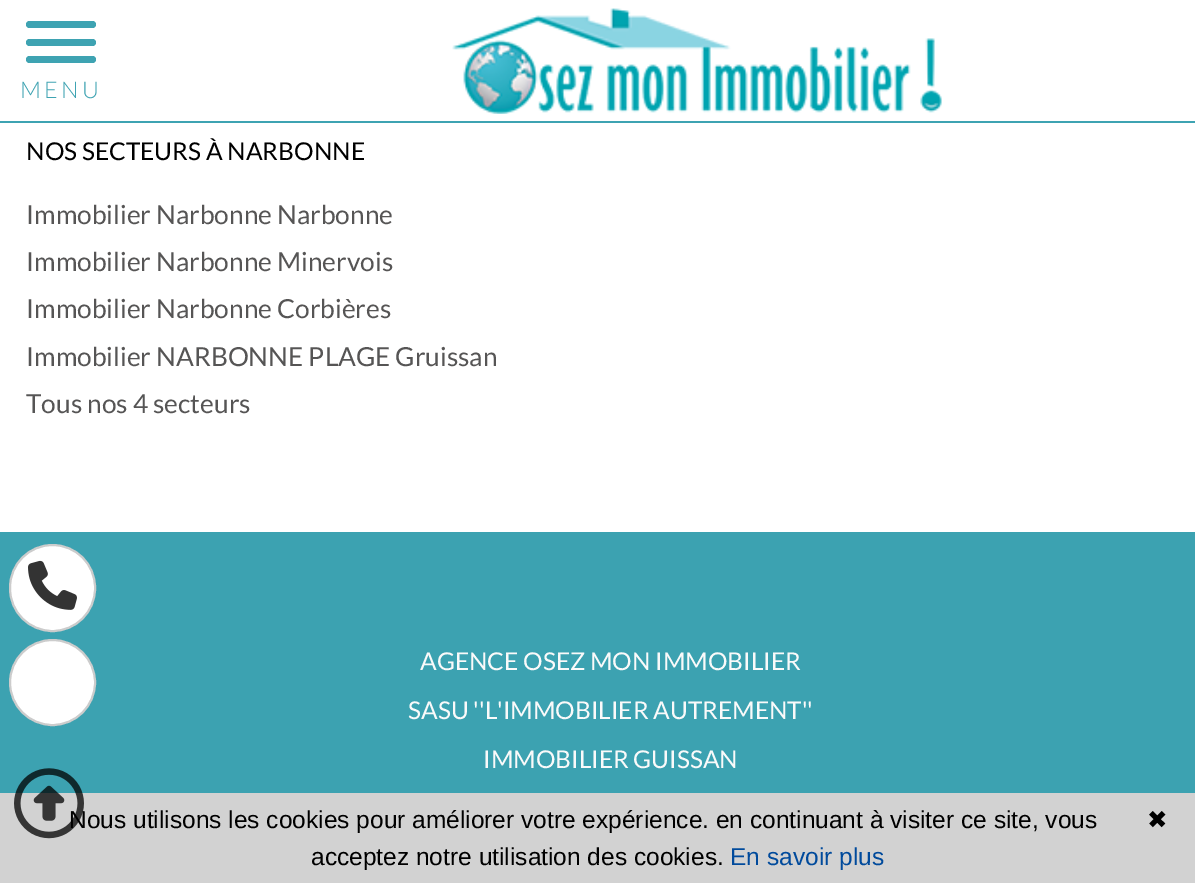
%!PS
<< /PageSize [1195 883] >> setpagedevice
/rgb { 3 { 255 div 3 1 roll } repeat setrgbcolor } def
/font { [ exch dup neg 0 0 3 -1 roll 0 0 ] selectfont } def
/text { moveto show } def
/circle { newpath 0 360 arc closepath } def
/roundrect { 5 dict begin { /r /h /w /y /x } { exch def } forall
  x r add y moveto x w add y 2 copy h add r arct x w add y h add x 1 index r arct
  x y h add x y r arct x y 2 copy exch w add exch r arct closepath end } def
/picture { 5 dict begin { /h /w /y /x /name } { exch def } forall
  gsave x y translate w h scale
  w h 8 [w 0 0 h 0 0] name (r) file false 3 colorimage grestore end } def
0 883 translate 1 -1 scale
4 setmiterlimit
255 255 255 rgb
0 0 1195 883 rectfill
62 163 178 rgb
0 121 1195 2 rectfill
26 21 70 7 3.5 roundrect fill
26 39 70 7 3.5 roundrect fill
26 56 70 7 3.5 roundrect fill
(img_01.rgb) 452 8 490 106 picture
60 162 177 rgb
0 532 1195 261 rectfill
255 255 255 rgb
10 545 85 86 42.5 roundrect gsave fill grestore
204 204 204 rgb
2 setlinewidth
stroke
(img_02.rgb) 28 560 49 50 picture
255 255 255 rgb
52.5 682.5 42.5 circle gsave fill grestore
204 204 204 rgb
stroke
210 210 210 rgb
0 793 1195 90 rectfill
/Lato-Light 23 font
62 163 178 rgb
20 98 moveto 3.5 0 (MENU) ashow
/Lato-Regular 24.5 font
0 0 0 rgb
(NOS SECTEURS À NARBONNE) 26 160 text
/Lato-Regular 26.25 font
86 85 85 rgb
(Immobilier Narbonne Narbonne) 26 224 text
(Immobilier Narbonne Minervois) 26 271 text
(Immobilier Narbonne Corbières) 26 318 text
(Immobilier NARBONNE PLAGE Gruissan) 26 366 text
(Tous nos 4 secteurs) 26 413 text
/Lato-Regular 24.5 font
250 250 250 rgb
(AGENCE OSEZ MON IMMOBILIER) 420 670 text
(SASU ''L'IMMOBILIER AUTREMENT'') 408 719 text
(IMMOBILIER GUISSAN) 483 768 text
/LiberationSans-Regular 24.5 font
0 0 0 rgb
(Nous utilisons les cookies pour améliorer votre expérience. en continuant à visiter ce site, vous) 69 828 text
(img_03.rgb) 14 768 70 71 picture
/DejaVuSans-Regular 24.5 font
(✖) 1147 828 text
/LiberationSans-Regular 24.5 font
(acceptez notre utilisation des cookies.) 311 865 text
0 74 156 rgb
(En savoir plus) 730 865 text
showpage
